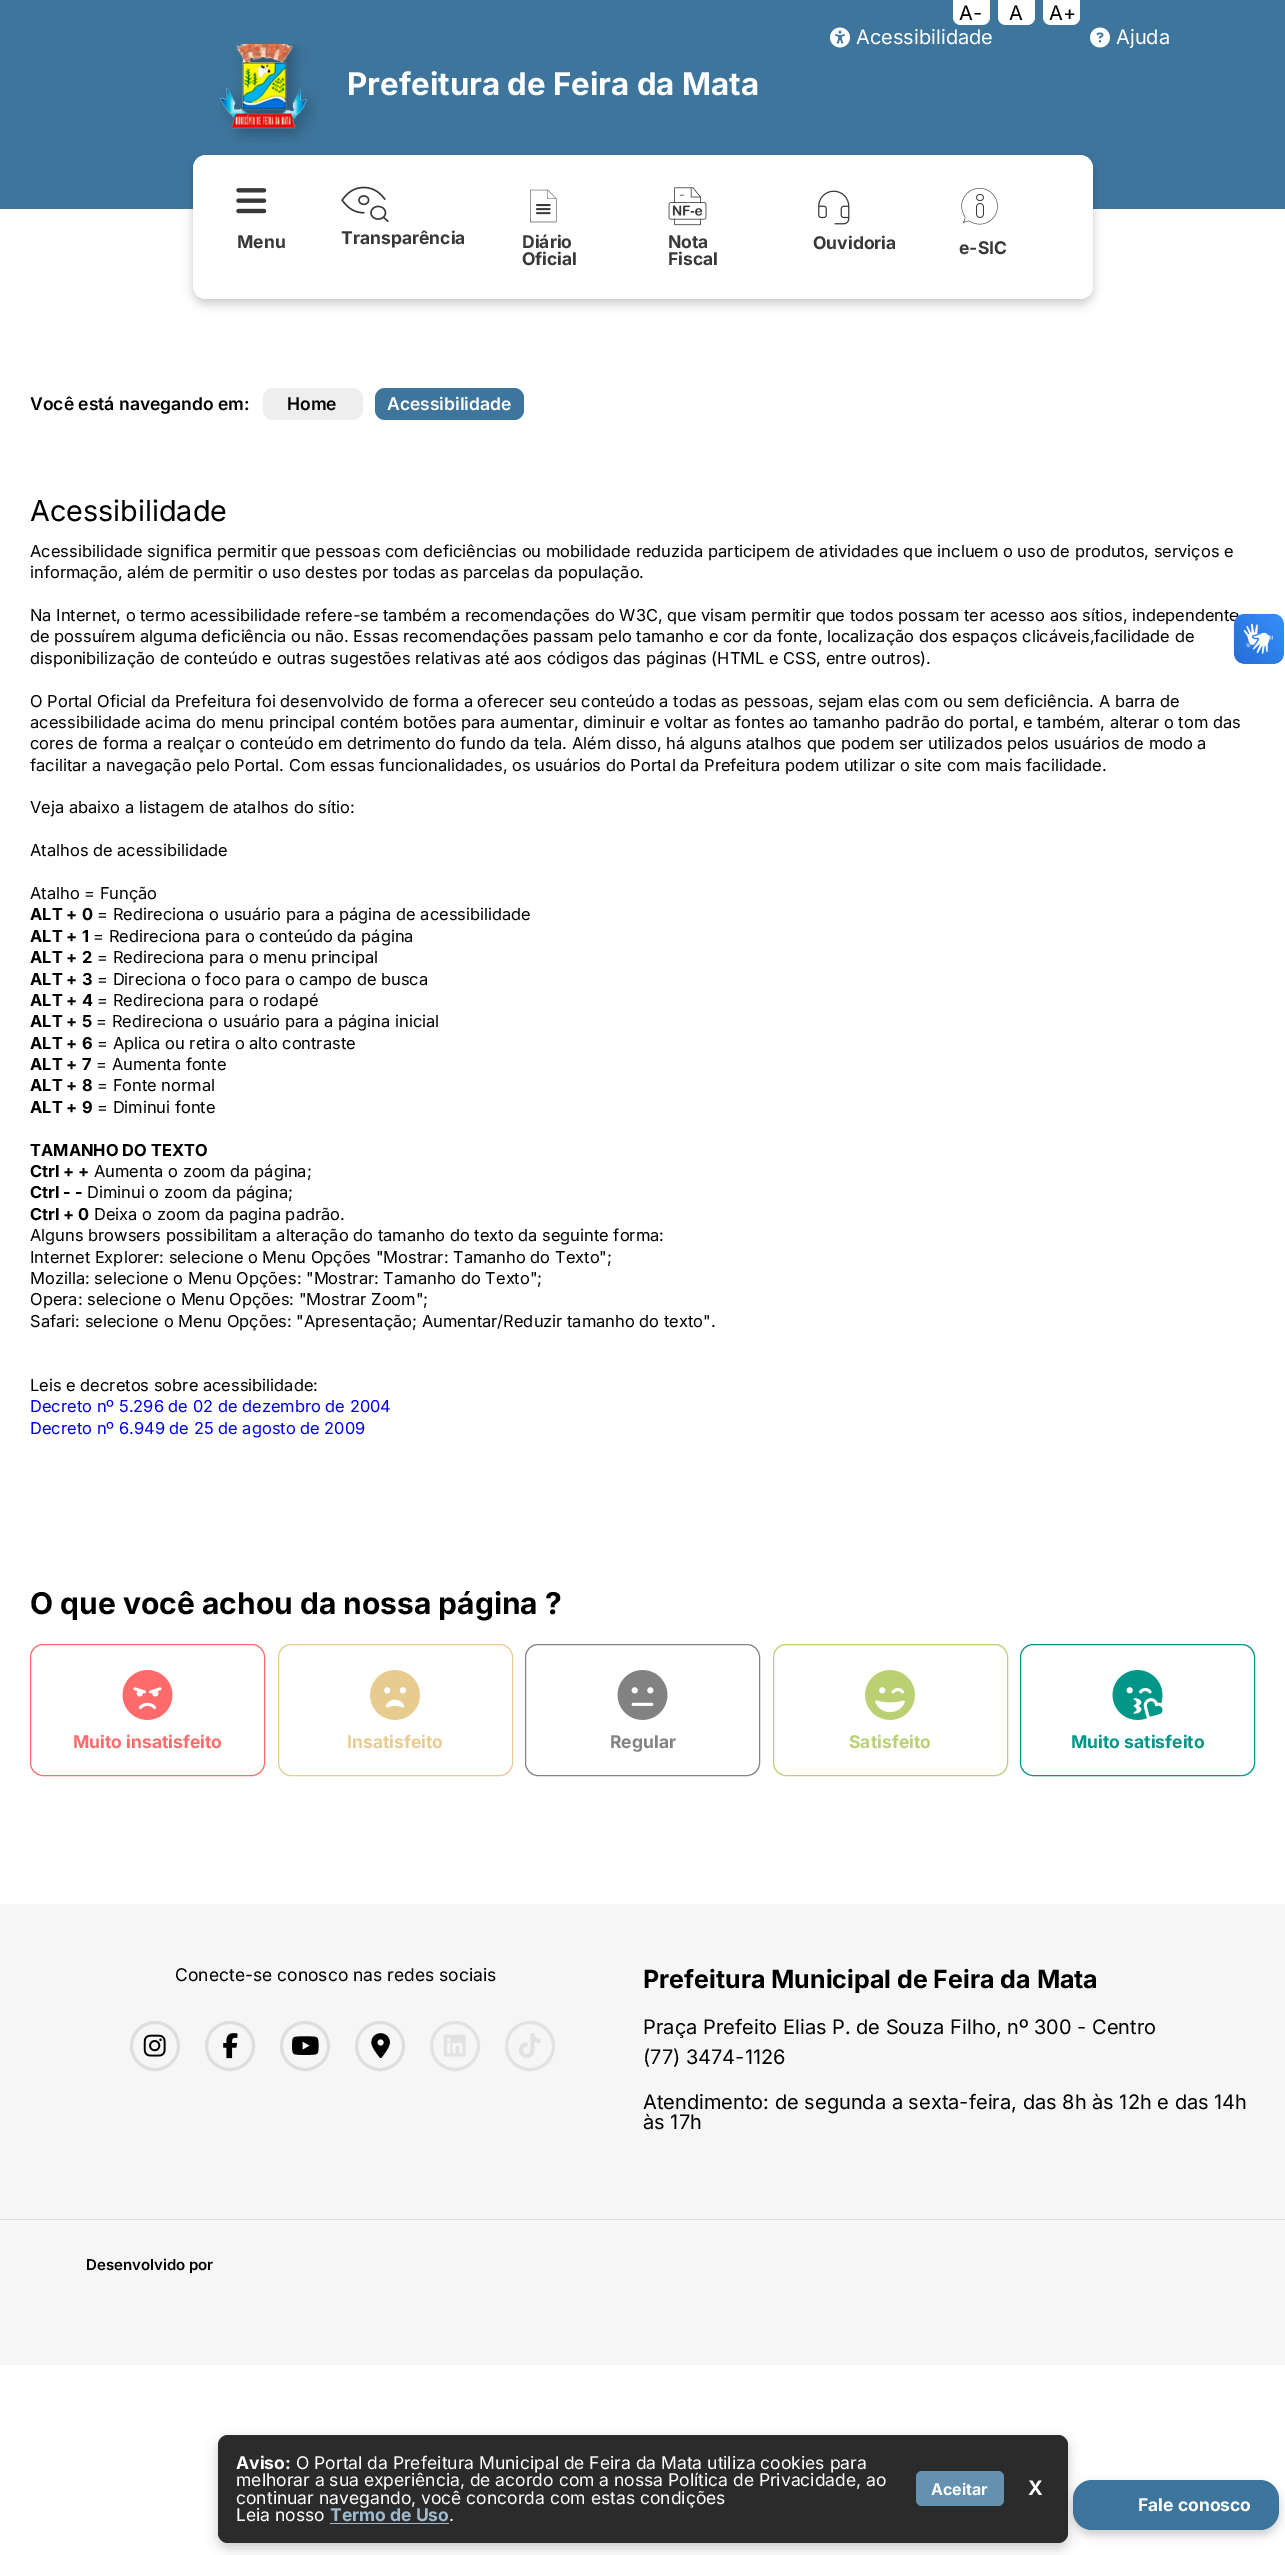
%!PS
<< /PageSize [1285 2555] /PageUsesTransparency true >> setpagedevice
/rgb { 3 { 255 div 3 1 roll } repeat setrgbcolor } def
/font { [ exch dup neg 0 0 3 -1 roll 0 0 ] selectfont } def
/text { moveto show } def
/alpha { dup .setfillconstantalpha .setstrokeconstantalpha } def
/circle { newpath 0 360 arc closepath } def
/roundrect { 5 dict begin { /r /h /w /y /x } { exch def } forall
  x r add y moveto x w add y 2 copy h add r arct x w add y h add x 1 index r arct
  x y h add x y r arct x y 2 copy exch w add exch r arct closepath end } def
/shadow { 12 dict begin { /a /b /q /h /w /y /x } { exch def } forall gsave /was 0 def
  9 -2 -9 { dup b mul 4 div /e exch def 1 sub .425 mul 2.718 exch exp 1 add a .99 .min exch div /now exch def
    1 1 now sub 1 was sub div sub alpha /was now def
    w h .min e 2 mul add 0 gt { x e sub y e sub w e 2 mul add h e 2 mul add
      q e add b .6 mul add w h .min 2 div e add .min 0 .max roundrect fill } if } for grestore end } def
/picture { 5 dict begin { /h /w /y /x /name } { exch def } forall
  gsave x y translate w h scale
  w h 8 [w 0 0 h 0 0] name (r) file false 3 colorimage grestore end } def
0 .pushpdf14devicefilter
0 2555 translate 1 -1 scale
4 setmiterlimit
255 255 255 rgb
0 0 1285 2555 rectfill
62 117 157 rgb
0 0 1285 209 rectfill
255 255 255 rgb
953 0 moveto 37 0 rlineto 0 17 rlineto 0 4.5 -3.5 8 -8 8 rcurveto -21 0 rlineto -4.5 0 -8 -3.5 -8 -8 rcurveto closepath fill
998 0 moveto 37 0 rlineto 0 17 rlineto 0 4.5 -3.5 8 -8 8 rcurveto -21 0 rlineto -4.5 0 -8 -3.5 -8 -8 rcurveto closepath fill
1043 0 moveto 37 0 rlineto 0 17 rlineto 0 4.5 -3.5 8 -8 8 rcurveto -21 0 rlineto -4.5 0 -8 -3.5 -8 -8 rcurveto closepath fill
(img_01.rgb) 830 27 20 21 picture
(img_02.rgb) 1090 27 20 21 picture
(img_03.rgb) 219 44 99 99 picture
0 0 0 rgb
193 160 900 144 13 5 0.2 shadow
255 255 255 rgb
193 155 900 144 13 roundrect fill
(img_04.rgb) 236 188 31 26 picture
(img_05.rgb) 341 186 48 36 picture
(img_06.rgb) 530 189 27 34 picture
(img_07.rgb) 668 187 39 39 picture
(img_08.rgb) 818 190 32 35 picture
(img_09.rgb) 961 188 37 37 picture
0 0 0 rgb
1073 2485 206 50 19 5 0.2 shadow
62 117 157 rgb
1073 2480 206 50 19 roundrect fill
238 238 238 rgb
263 388 100 32 10 roundrect fill
62 117 157 rgb
375 388 149 32 10 roundrect fill
255 107 107 rgb
30.5 1644.5 234 131 12.5 roundrect stroke
(img_10.rgb) 122 1670 51 50 picture
231 203 143 rgb
278.5 1644.5 234 131 12.5 roundrect stroke
(img_11.rgb) 370 1670 50 50 picture
130 130 130 rgb
525.5 1644.5 234 131 12.5 roundrect stroke
(img_12.rgb) 617 1670 51 50 picture
186 208 114 rgb
773.5 1644.5 234 131 12.5 roundrect stroke
(img_13.rgb) 865 1670 50 50 picture
0 150 136 rgb
1020.5 1644.5 234 131 12.5 roundrect stroke
(img_14.rgb) 1112 1670 51 50 picture
246 246 246 rgb
0 1904 1285 461 rectfill
222 222 222 rgb
3 setlinewidth
155 2046 23.5 circle stroke
(img_17.rgb) 143 2034 23 23 picture
230 2046 23.5 circle stroke
(img_18.rgb) 223 2033 15 26 picture
305 2046 23.5 circle stroke
(img_19.rgb) 292 2036 27 19 picture
380 2046 23.5 circle stroke
(img_20.rgb) 371 2033 19 26 picture
226 226 226 rgb
455 2046 23.5 circle stroke
(img_21.rgb) 443 2034 23 23 picture
530 2046 23.5 circle stroke
(img_22.rgb) 518 2033 23 25 picture
222 222 222 rgb
0 2219 1285 1 rectfill
gsave
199 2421 moveto 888 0 rlineto 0 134 rlineto -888 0 rlineto closepath 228 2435 moveto 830 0 rlineto 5.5 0 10 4.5 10 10 rcurveto 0 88 rlineto 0 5.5 -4.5 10 -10 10 rcurveto -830 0 rlineto -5.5 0 -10 -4.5 -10 -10 rcurveto 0 -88 rlineto 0 -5.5 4.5 -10 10 -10 rcurveto closepath eoclip newpath
0 0 0 rgb
218 2440 850 108 10 6 0.2 shadow
grestore
0.83 alpha
0 0 0 rgb
218 2435 850 108 10 roundrect fill
1 alpha
159 186 206 rgb
330 2523 119 1 rectfill
101 145 177 rgb
916 2471 88 35 6 roundrect fill
/Inter-Regular 20 font
0 0 0 rgb
(A-) 959 20 text
(A) 1009 20 text
(A+) 1049 20 text
255 255 255 rgb
(Acessibilidade) 856 44 text
(Ajuda) 1116 44 text
/Inter-Bold 31.25 font
(Prefeitura de Feira da Mata) 347 95 text
/Inter-Bold 17.5 font
56 56 56 rgb
(Menu) 237 248 text
(Transparência) 341 244 text
(Diário) 522 248 text
(Oficial) 522 265 text
(Nota) 668 248 text
(Fiscal) 668 265 text
(Ouvidoria) 813 249 text
(e-SIC) 959 254 text
255 255 255 rgb
(Fale conosco) 1138 2511 text
/Inter-SemiBold 17.5 font
0 0 0 rgb
(Você está navegando em:) 30 410 text
(Home) 287 410 text
255 255 255 rgb
(Acessibilidade) 387 410 text
/Inter-Regular 28.75 font
0 0 0 rgb
(Acessibilidade) 30 521 text
/Inter-Regular 16.45 font
(Acessibilidade significa permitir que pessoas com deficiências ou mobilidade reduzida participem de atividades que incluem o uso de produtos, serviços e) 30 557 text
(informação, além de permitir o uso destes por todas as parcelas da população.) 30 578 text
(Na Internet, o termo acessibilidade refere-se também a recomendações do W3C, que visam permitir que todos possam ter acesso aos sítios, independente) 30 621 text
(de possuírem alguma deficiência ou não. Essas recomendações passam pelo tamanho e cor da fonte, localização dos espaços clicáveis,facilidade de) 30 642 text
(disponibilização de conteúdo e outras sugestões relativas até aos códigos das páginas \(HTML e CSS, entre outros\).) 30 664 text
(O Portal Oficial da Prefeitura foi desenvolvido de forma a oferecer seu conteúdo a todas as pessoas, sejam elas com ou sem deficiência. A barra de) 30 707 text
(acessibilidade acima do menu principal contém botões para aumentar, diminuir e voltar as fontes ao tamanho padrão do portal, e também, alterar o tom das) 30 728 text
(cores de forma a realçar o conteúdo em detrimento do fundo da tela. Além disso, há alguns atalhos que podem ser utilizados pelos usuários de modo a) 30 749 text
(facilitar a navegação pelo Portal. Com essas funcionalidades, os usuários do Portal da Prefeitura podem utilizar o site com mais facilidade.) 30 771 text
(Veja abaixo a listagem de atalhos do sítio:) 30 813 text
(Atalhos de acessibilidade) 30 856 text
(Atalho = Função) 30 899 text
/Inter-Bold 16.45 font
(ALT + 0) 30 920 text
/Inter-Regular 16.45 font
(= Redireciona o usuário para a página de acessibilidade) 97 920 text
/Inter-Bold 16.45 font
(ALT + 1) 30 942 text
/Inter-Regular 16.45 font
(= Redireciona para o conteúdo da página) 93 942 text
/Inter-Bold 16.45 font
(ALT + 2) 30 963 text
/Inter-Regular 16.45 font
(= Redireciona para o menu principal) 97 963 text
/Inter-Bold 16.45 font
(ALT + 3) 30 985 text
/Inter-Regular 16.45 font
(= Direciona o foco para o campo de busca) 97 985 text
/Inter-Bold 16.45 font
(ALT + 4) 30 1006 text
/Inter-Regular 16.45 font
(= Redireciona para o rodapé) 97 1006 text
/Inter-Bold 16.45 font
(ALT + 5) 30 1027 text
/Inter-Regular 16.45 font
(= Redireciona o usuário para a página inicial) 96 1027 text
/Inter-Bold 16.45 font
(ALT + 6) 30 1049 text
/Inter-Regular 16.45 font
(= Aplica ou retira o alto contraste) 97 1049 text
/Inter-Bold 16.45 font
(ALT + 7) 30 1070 text
/Inter-Regular 16.45 font
(= Aumenta fonte) 96 1070 text
/Inter-Bold 16.45 font
(ALT + 8) 30 1091 text
/Inter-Regular 16.45 font
(= Fonte normal) 97 1091 text
/Inter-Bold 16.45 font
(ALT + 9) 30 1113 text
/Inter-Regular 16.45 font
(= Diminui fonte) 97 1113 text
/Inter-Bold 16.45 font
(TAMANHO DO TEXTO) 30 1156 text
(Ctrl + +) 30 1177 text
/Inter-Regular 16.45 font
(Aumenta o zoom da página;) 94 1177 text
/Inter-Bold 16.45 font
(Ctrl - -) 30 1198 text
/Inter-Regular 16.45 font
(Diminui o zoom da página;) 87 1198 text
/Inter-Bold 16.45 font
(Ctrl + 0) 30 1220 text
/Inter-Regular 16.45 font
(Deixa o zoom da pagina padrão.) 94 1220 text
(Alguns browsers possibilitam a alteração do tamanho do texto da seguinte forma:) 30 1241 text
(Internet Explorer: selecione o Menu Opções "Mostrar: Tamanho do Texto";) 30 1263 text
(Mozilla: selecione o Menu Opções: "Mostrar: Tamanho do Texto";) 30 1284 text
(Opera: selecione o Menu Opções: "Mostrar Zoom";) 30 1305 text
(Safari: selecione o Menu Opções: "Apresentação; Aumentar/Reduzir tamanho do texto".) 30 1327 text
(Leis e decretos sobre acessibilidade:) 30 1391 text
0 0 238 rgb
(Decreto nº 5.296 de 02 de dezembro de 2004) 30 1412 text
(Decreto nº 6.949 de 25 de agosto de 2009) 30 1434 text
/Inter-Bold 30 font
0 0 0 rgb
(O que você achou da nossa página ?) 30 1614 text
/Inter-Bold 17.5 font
255 107 107 rgb
(Muito insatisfeito) 73 1748 text
231 203 143 rgb
(Insatisfeito) 347 1748 text
130 130 130 rgb
(Regular) 610 1748 text
186 208 114 rgb
(Satisfeito) 849 1748 text
0 150 136 rgb
(Muito satisfeito) 1071 1748 text
(img_15.rgb) 1233 613 51 51 picture
(img_16.rgb) 1234 614 50 50 picture
/Inter-Regular 17.5 font
0 0 0 rgb
(Conecte-se conosco nas redes sociais) 175 1981 text
/Inter-Bold 25 font
(Prefeitura Municipal de Feira da Mata) 643 1988 text
/Inter-Regular 20 font
(Praça Prefeito Elias P. de Souza Filho, nº 300 - Centro) 643 2034 text
(\(77\) 3474-1126) 643 2064 text
(Atendimento: de segunda a sexta-feira, das 8h às 12h e das 14h) 643 2109 text
(às 17h) 643 2129 text
/Inter-SemiBold 15 font
(Desenvolvido por) 86 2270 text
/Inter-Bold 17.5 font
255 255 255 rgb
(Aviso:) 236 2469 text
/Inter-Regular 17.5 font
(O Portal da Prefeitura Municipal de Feira da Mata utiliza cookies para) 296 2469 text
(melhorar a sua experiência, de acordo com a nossa Política de Privacidade, ao) 236 2486 text
(continuar navegando, você concorda com estas condições) 236 2504 text
(Leia nosso) 236 2521 text
/Inter-Bold 17.5 font
159 186 206 rgb
(Termo de Uso) 330 2521 text
/Inter-Regular 17.5 font
255 255 255 rgb
(.) 449 2521 text
/Inter-Bold 16 font
(Aceitar) 931 2495 text
/Inter-Bold 20 font
(X) 1028 2495 text
.poppdf14devicefilter showpage
